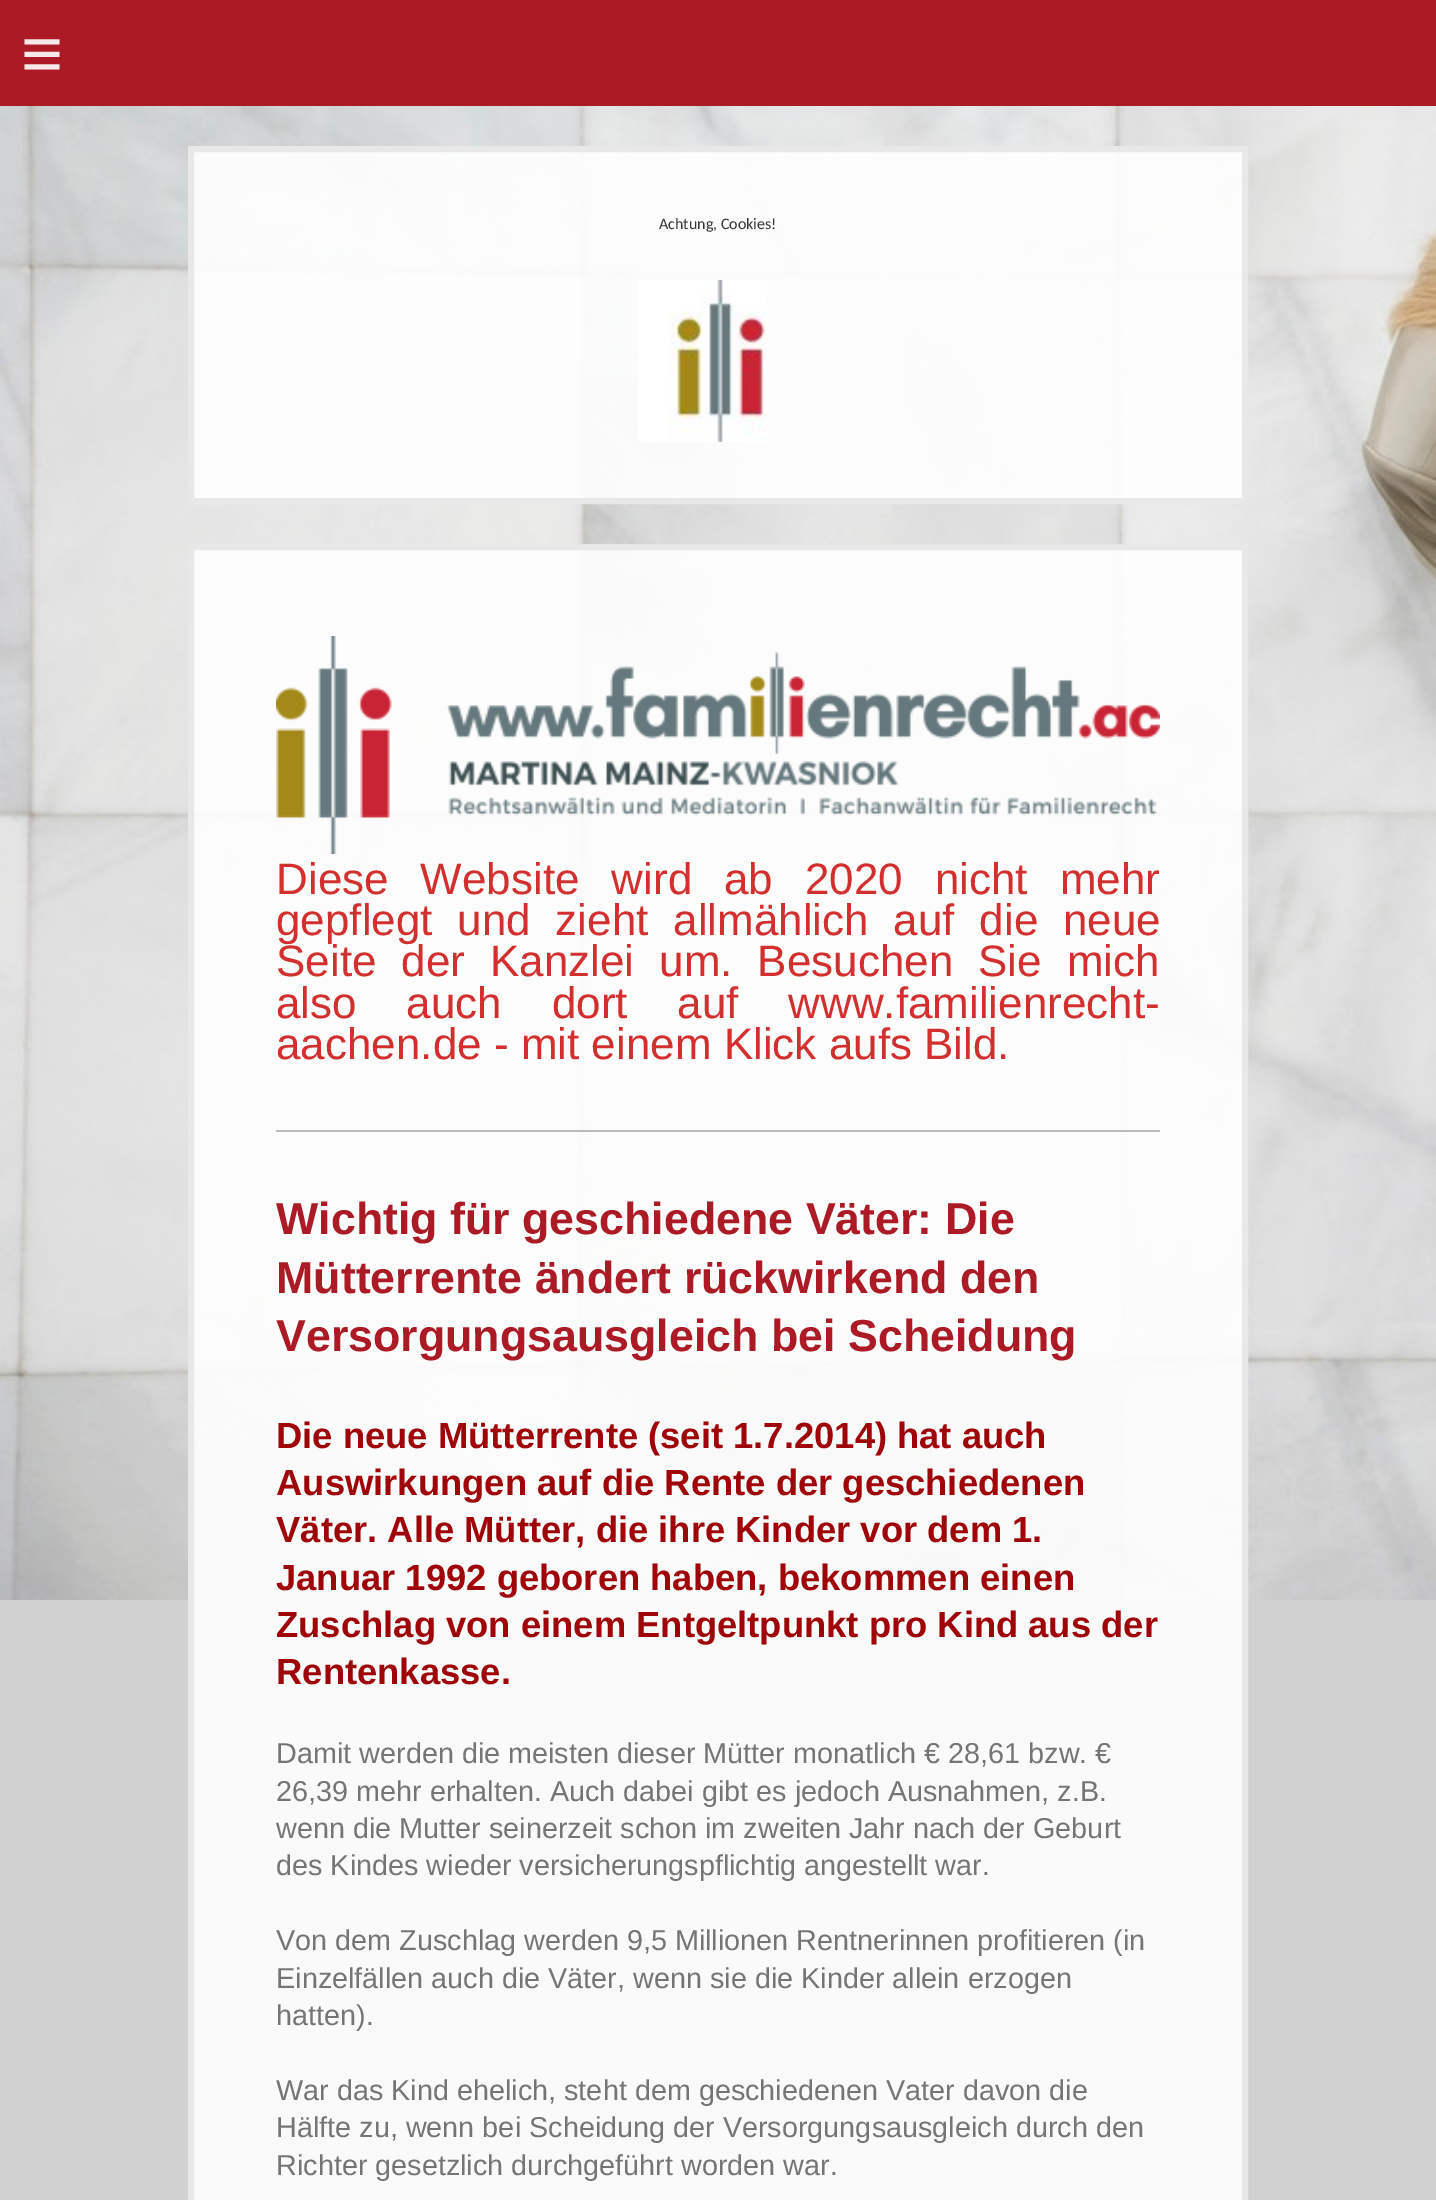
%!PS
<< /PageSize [1436 2200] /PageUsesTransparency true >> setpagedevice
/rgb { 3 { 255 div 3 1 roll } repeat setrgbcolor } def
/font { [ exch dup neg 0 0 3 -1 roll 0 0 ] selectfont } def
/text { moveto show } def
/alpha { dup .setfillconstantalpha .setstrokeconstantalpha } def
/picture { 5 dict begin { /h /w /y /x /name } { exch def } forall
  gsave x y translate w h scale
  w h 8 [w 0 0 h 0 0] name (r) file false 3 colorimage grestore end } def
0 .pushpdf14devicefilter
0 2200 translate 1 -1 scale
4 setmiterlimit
209 209 209 rgb
0 0 1436 2200 rectfill
(img_01.rgb) 0 106 1436 1494 picture
171 26 37 rgb
0 0 1436 106 rectfill
0.9 alpha
255 255 255 rgb
191 149 moveto 1054 0 rlineto 0 352 rlineto -1054 0 rlineto closepath fill
1 alpha
232 232 232 rgb
6 setlinewidth
191 149 moveto 1054 0 rlineto 0 352 rlineto -1054 0 rlineto closepath stroke
(img_02.rgb) 638 280 129 162 picture
0.9 alpha
255 255 255 rgb
191 547 moveto 1054 0 rlineto 0 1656 rlineto -1054 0 rlineto closepath fill
1 alpha
232 232 232 rgb
191 547 moveto 1054 0 rlineto 0 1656 rlineto -1054 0 rlineto closepath stroke
(img_03.rgb) 276 636 884 218 picture
186 186 186 rgb
276 1130 884 2 rectfill
/LiberationSans-Regular 72 font
247 232 233 rgb
21 78 moveto 21 0 (≡) ashow
/Carlito-Regular 16 font
53 53 53 rgb
(Achtung, Cookies!) 659 229 text
/LiberationSans-Regular 44 font
211 47 47 rgb
276 894 moveto 19.75 0 32 (Diese Website wird ab 2020 nicht mehr) widthshow
276 935 moveto 12.5 0 32 (gepflegt und zieht allmählich auf die neue) widthshow
276 976 moveto 12.75 0 32 (Seite der Kanzlei um. Besuchen Sie mich) widthshow
276 1018 moveto 37.5 0 32 (also auch dort auf www.familienrecht-) widthshow
(aachen.de - mit einem Klick aufs Bild.) 276 1059 text
/LiberationSans-Bold 44.75 font
171 26 37 rgb
(Wichtig für geschiedene Väter: Die) 276 1234 text
(Mütterrente ändert rückwirkend den) 276 1293 text
(Versorgungsausgleich bei Scheidung) 276 1351 text
/LiberationSans-Bold 36.4 font
159 4 8 rgb
(Die neue Mütterrente \(seit 1.7.2014\) hat auch) 276 1448 text
(Auswirkungen auf die Rente der geschiedenen) 276 1495 text
(Väter. Alle Mütter, die ihre Kinder vor dem 1.) 276 1542 text
(Januar 1992 geboren haben, bekommen einen) 276 1590 text
(Zuschlag von einem Entgeltpunkt pro Kind aus der) 276 1637 text
(Rentenkasse.) 276 1684 text
/LiberationSans-Regular 28.8 font
117 117 117 rgb
(Damit werden die meisten dieser Mütter monatlich € 28,61 bzw. €) 276 1763 text
(26,39 mehr erhalten. Auch dabei gibt es jedoch Ausnahmen, z.B.) 276 1801 text
(wenn die Mutter seinerzeit schon im zweiten Jahr nach der Geburt) 276 1838 text
(des Kindes wieder versicherungspflichtig angestellt war.) 276 1875 text
(Von dem Zuschlag werden 9,5 Millionen Rentnerinnen profitieren \(in) 276 1950 text
(Einzelfällen auch die Väter, wenn sie die Kinder allein erzogen) 276 1988 text
(hatten\).) 276 2025 text
(War das Kind ehelich, steht dem geschiedenen Vater davon die) 276 2100 text
(Hälfte zu, wenn bei Scheidung der Versorgungsausgleich durch den) 276 2137 text
(Richter gesetzlich durchgeführt worden war.) 276 2175 text
.poppdf14devicefilter showpage
